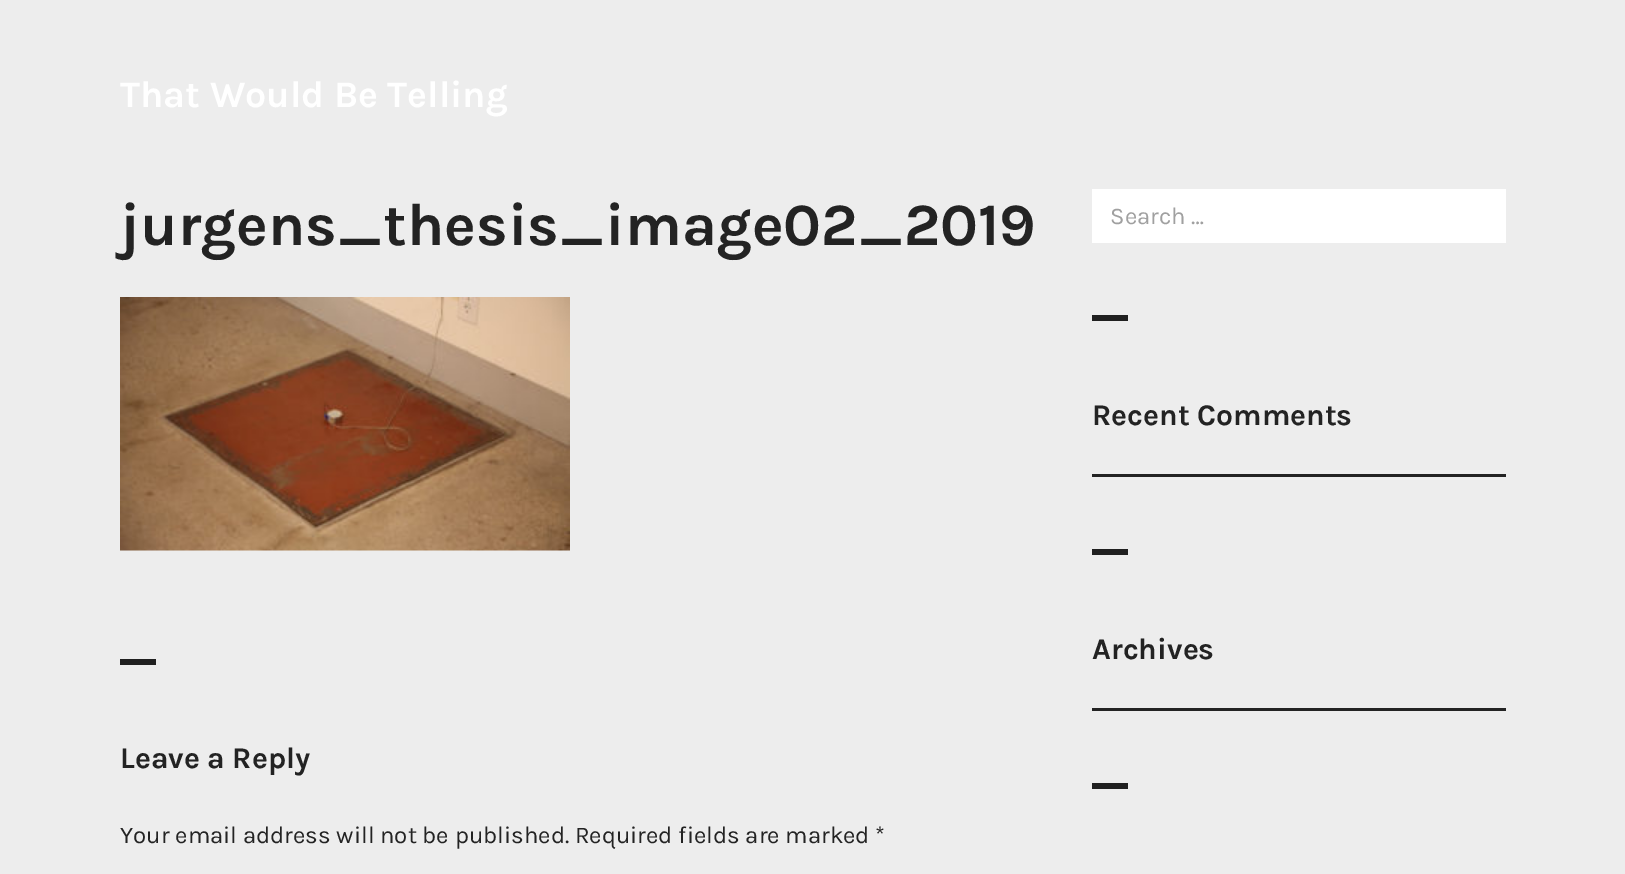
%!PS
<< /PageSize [1625 874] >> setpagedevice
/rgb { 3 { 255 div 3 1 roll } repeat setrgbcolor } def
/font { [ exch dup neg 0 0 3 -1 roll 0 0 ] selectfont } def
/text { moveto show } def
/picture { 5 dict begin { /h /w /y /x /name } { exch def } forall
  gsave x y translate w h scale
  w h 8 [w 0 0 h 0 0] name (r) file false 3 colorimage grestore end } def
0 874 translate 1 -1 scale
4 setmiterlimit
237 237 237 rgb
0 0 1625 874 rectfill
(img_01.rgb) 120 297 450 254 picture
32 32 32 rgb
120 659 36 6 rectfill
255 255 255 rgb
1092 189 414 54 rectfill
32 32 32 rgb
1092 315 36 6 rectfill
35 35 35 rgb
1092 474 414 3 rectfill
32 32 32 rgb
1092 549 36 6 rectfill
35 35 35 rgb
1092 708 414 3 rectfill
32 32 32 rgb
1092 783 36 6 rectfill
/Karla-Bold 37.5 font
255 255 255 rgb
(That Would Be Telling) 120 107 text
/Karla-Bold 60 font
35 35 35 rgb
(jurgens_thesis_image02_2019) 120 245 text
/Karla-Bold 30 font
(Leave a Reply) 120 768 text
/Karla-Regular 24 font
(Your email address will not be published. Required fields are marked *) 120 843 text
160 160 160 rgb
(Search …) 1110 224 text
/Karla-Bold 30 font
35 35 35 rgb
(Recent Comments) 1092 425 text
(Archives) 1092 659 text
showpage
